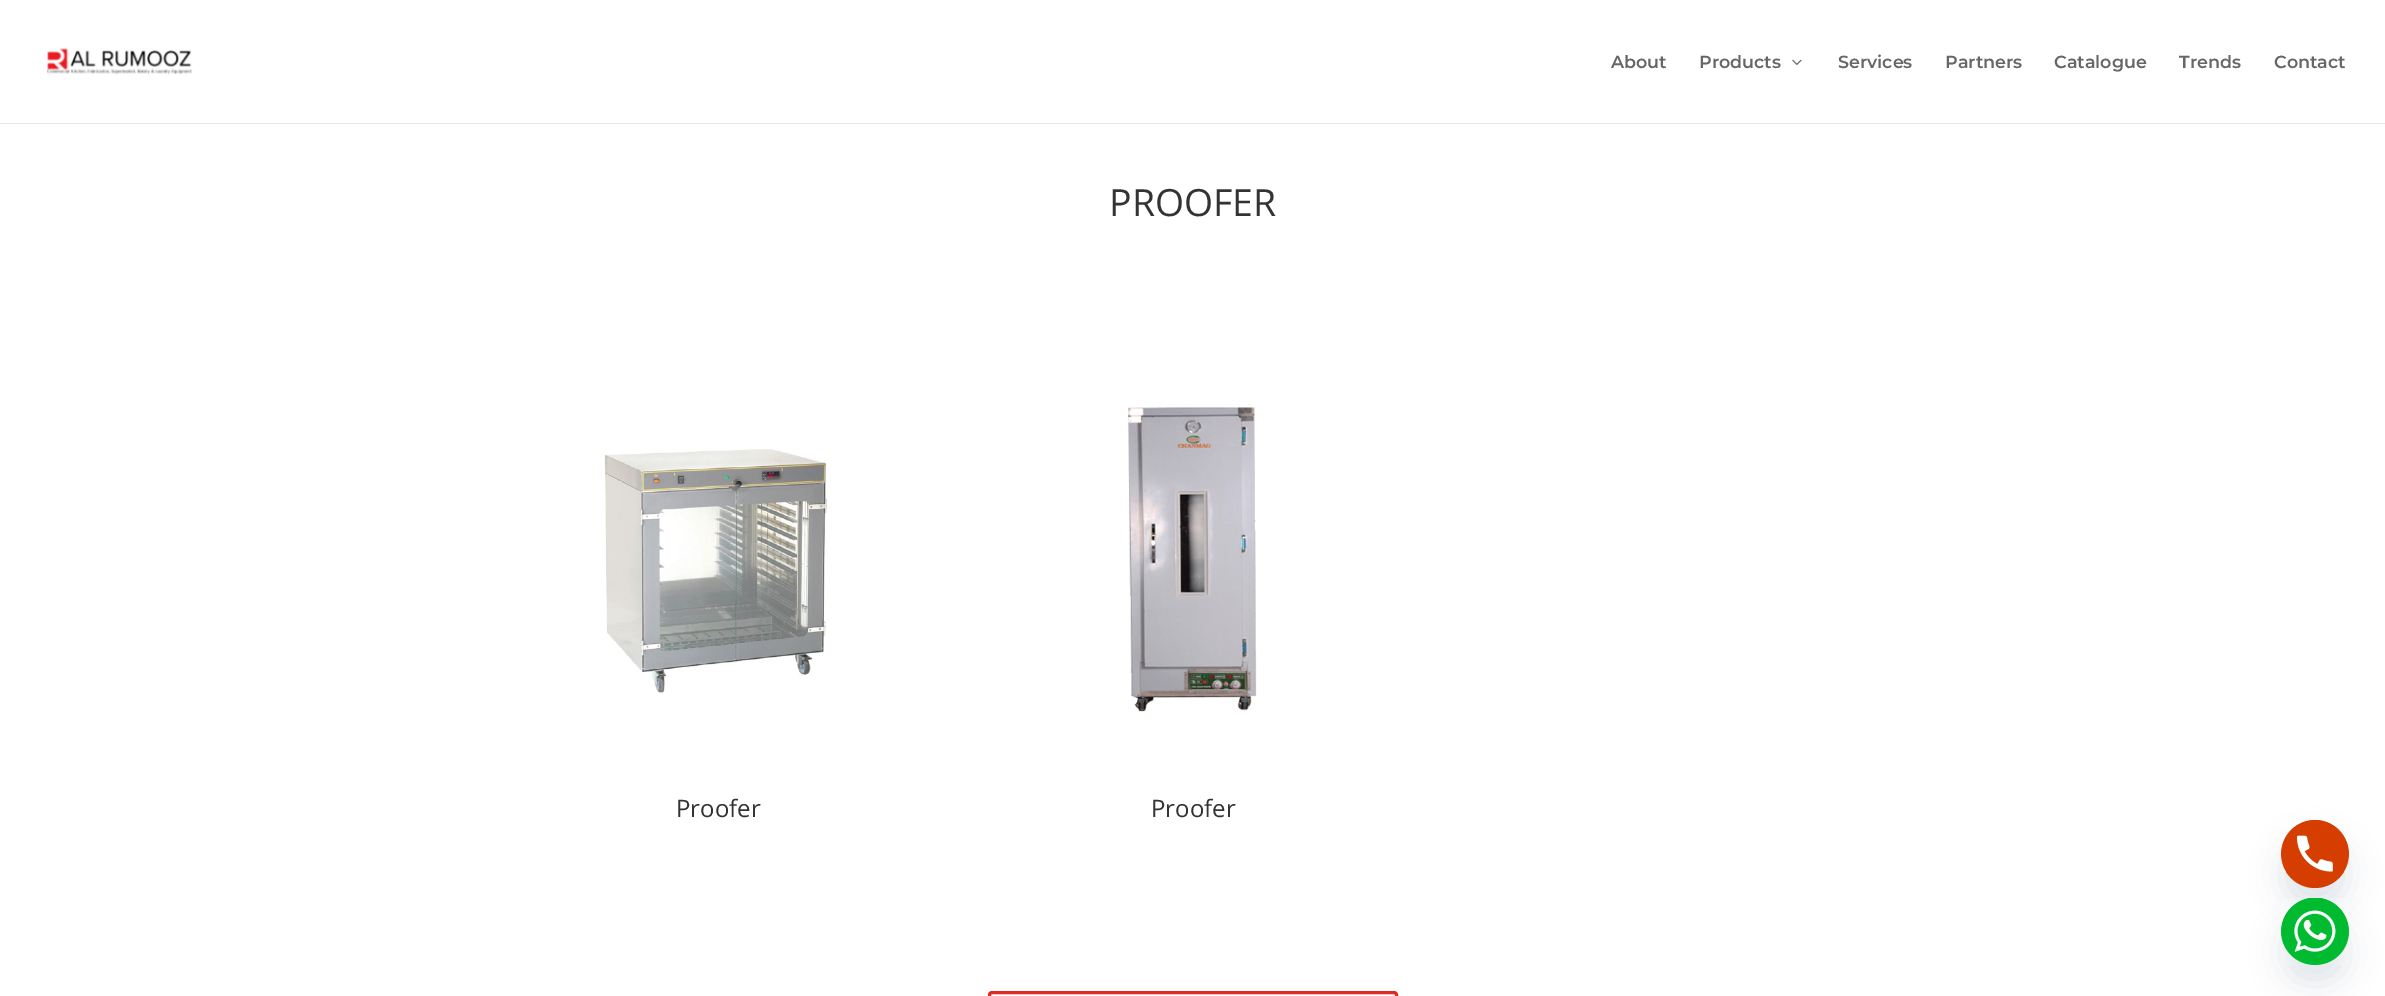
%!PS
<< /PageSize [2385 996] /PageUsesTransparency true >> setpagedevice
/rgb { 3 { 255 div 3 1 roll } repeat setrgbcolor } def
/font { [ exch dup neg 0 0 3 -1 roll 0 0 ] selectfont } def
/text { moveto show } def
/alpha { dup .setfillconstantalpha .setstrokeconstantalpha } def
/circle { newpath 0 360 arc closepath } def
/roundrect { 5 dict begin { /r /h /w /y /x } { exch def } forall
  x r add y moveto x w add y 2 copy h add r arct x w add y h add x 1 index r arct
  x y h add x y r arct x y 2 copy exch w add exch r arct closepath end } def
/shadow { 12 dict begin { /a /b /q /h /w /y /x } { exch def } forall gsave /was 0 def
  9 -2 -9 { dup b mul 4 div /e exch def 1 sub .425 mul 2.718 exch exp 1 add a .99 .min exch div /now exch def
    1 1 now sub 1 was sub div sub alpha /was now def
    w h .min e 2 mul add 0 gt { x e sub y e sub w e 2 mul add h e 2 mul add
      q e add b .6 mul add w h .min 2 div e add .min 0 .max roundrect fill } if } for grestore end } def
/picture { 5 dict begin { /h /w /y /x /name } { exch def } forall
  gsave x y translate w h scale
  w h 8 [w 0 0 h 0 0] name (r) file false 3 colorimage grestore end } def
0 .pushpdf14devicefilter
0 996 translate 1 -1 scale
4 setmiterlimit
255 255 255 rgb
0 0 2385 996 rectfill
230 230 230 rgb
0 123 2385 1 rectfill
(img_01.rgb) 47 48 146 27 picture
(img_02.rgb) 1792 59 10 6 picture
(img_03.rgb) 604 449 223 244 picture
(img_04.rgb) 1128 407 129 305 picture
224 43 32 rgb
3 setlinewidth
989.5 992.5 407 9 2.5 roundrect stroke
73 104 126 rgb
2281 840 68 68 34 15 0.16 shadow
214 61 0 rgb
2315 854 34 circle fill
(img_05.rgb) 2281 820 68 52 picture
73 104 126 rgb
2281 918 68 67 33.5 15 0.16 shadow
0 186 47 rgb
2281 898 68 67 33.5 roundrect fill
(img_06.rgb) 2281 898 68 67 picture
/Montserrat-SemiBold 17.5 font
102 102 102 rgb
(About) 1611 68 text
(Products) 1699 68 text
(Services) 1838 68 text
(Partners) 1945 68 text
(Catalogue) 2054 68 text
(Trends) 2179 68 text
(Contact) 2274 68 text
/OpenSans-Regular 37.5 font
51 51 51 rgb
(PROOFER) 1109 216 text
/OpenSans-Regular 24 font
(Proofer) 676 817 text
(Proofer) 1151 817 text
.poppdf14devicefilter showpage
